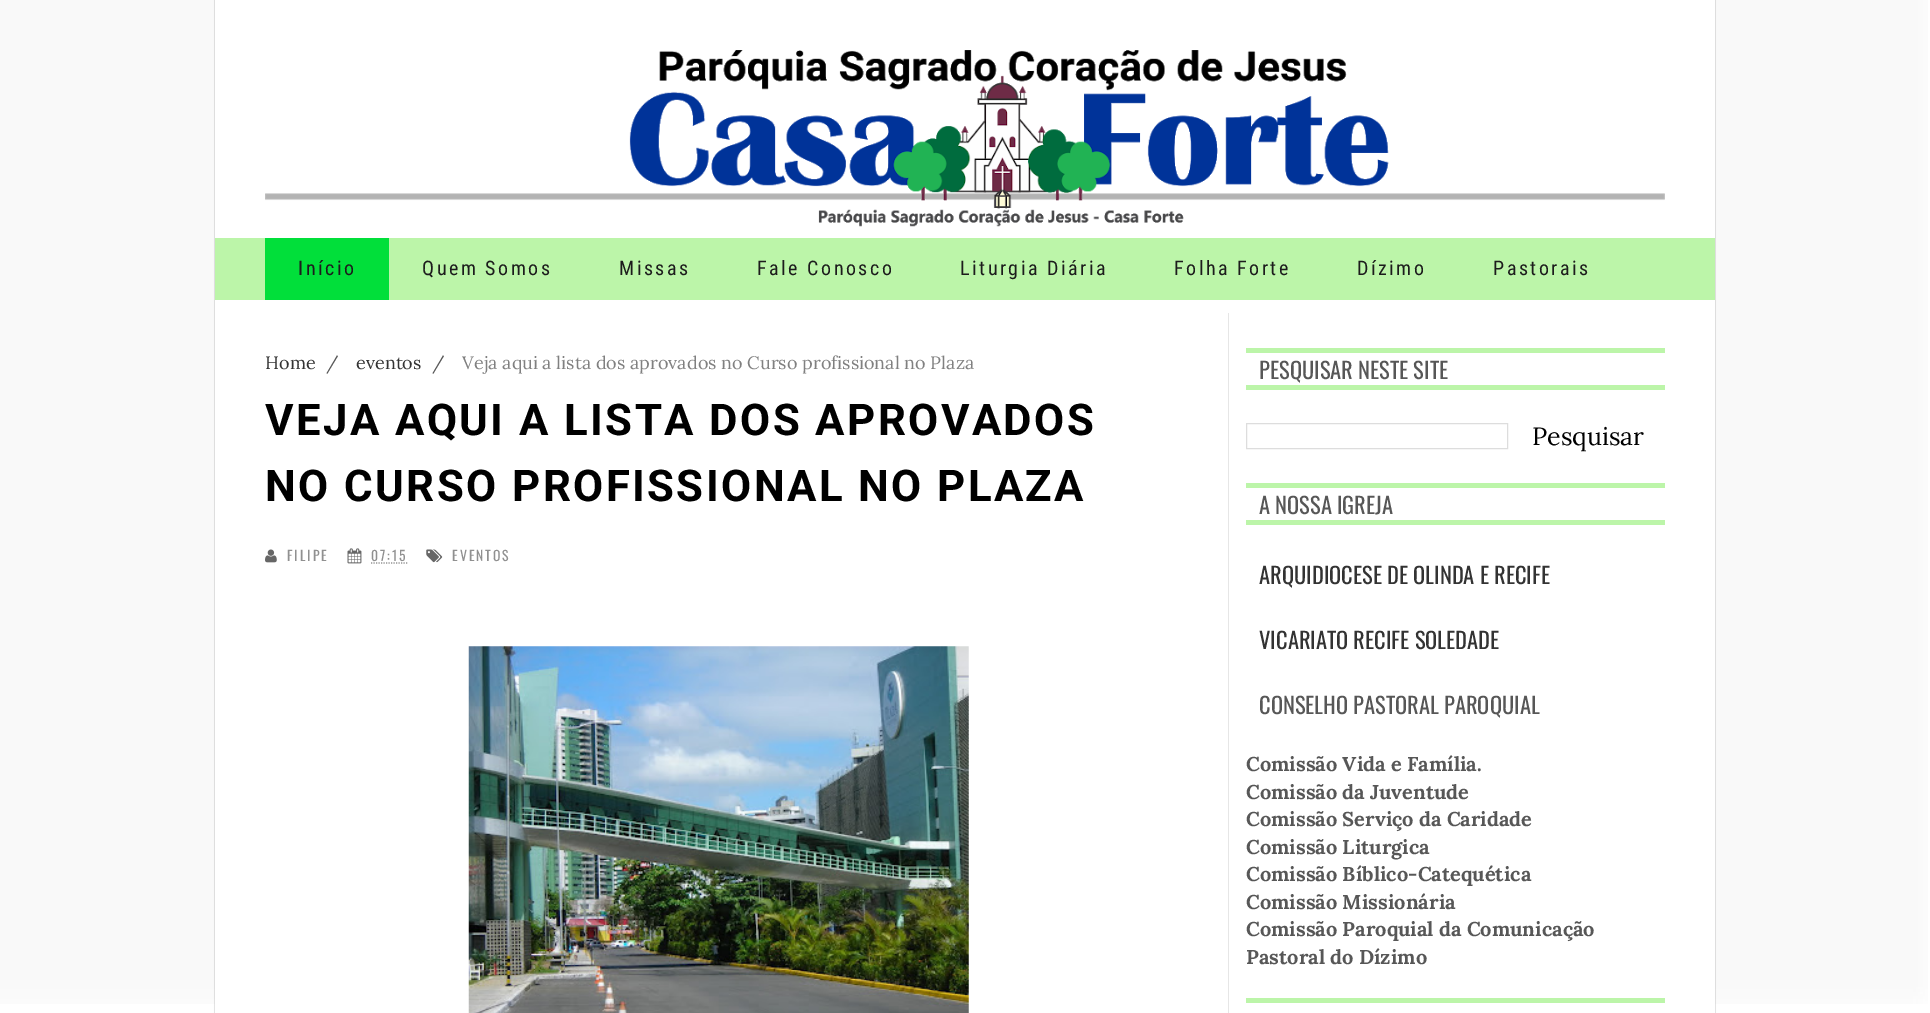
%!PS
<< /PageSize [1930 1013] /PageUsesTransparency true >> setpagedevice
/rgb { 3 { 255 div 3 1 roll } repeat setrgbcolor } def
/font { [ exch dup neg 0 0 3 -1 roll 0 0 ] selectfont } def
/text { moveto show } def
/alpha { dup .setfillconstantalpha .setstrokeconstantalpha } def
/roundrect { 5 dict begin { /r /h /w /y /x } { exch def } forall
  x r add y moveto x w add y 2 copy h add r arct x w add y h add x 1 index r arct
  x y h add x y r arct x y 2 copy exch w add exch r arct closepath end } def
/shadow { 12 dict begin { /a /b /q /h /w /y /x } { exch def } forall gsave /was 0 def
  9 -2 -9 { dup b mul 4 div /e exch def 1 sub .425 mul 2.718 exch exp 1 add a .99 .min exch div /now exch def
    1 1 now sub 1 was sub div sub alpha /was now def
    w h .min e 2 mul add 0 gt { x e sub y e sub w e 2 mul add h e 2 mul add
      q e add b .6 mul add w h .min 2 div e add .min 0 .max roundrect fill } if } for grestore end } def
/picture { 5 dict begin { /h /w /y /x /name } { exch def } forall
  gsave x y translate w h scale
  w h 8 [w 0 0 h 0 0] name (r) file false 3 colorimage grestore end } def
0 .pushpdf14devicefilter
0 1013 translate 1 -1 scale
4 setmiterlimit
255 255 255 rgb
0 0 1930 1013 rectfill
(img_01.rgb) 0 0 1928 1004 picture
0 0 0 rgb
215 0 1500 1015 0 0.5 0.4 shadow
255 255 255 rgb
215 0 1500 1013 rectfill
(img_02.rgb) 265 50 1400 177 picture
188 245 169 rgb
215 238 1500 62 rectfill
1 223 58 rgb
265 238 124 62 rectfill
230 230 230 rgb
1228 313 1 700 rectfill
(img_03.rgb) 265 549 12 14 picture
(img_04.rgb) 347 548 15 16 picture
144 144 144 rgb
1.2 setlinewidth
[1.25 1.25] 0 setdash
371 563 moveto 37 0 rlineto stroke
(img_05.rgb) 426 549 17 14 picture
(img_06.rgb) 468 646 501 367 picture
188 245 169 rgb
1246 348 419 5 rectfill
1246 385 419 5 rectfill
221 221 221 rgb
1 setlinewidth
[] 0 setdash
1246.5 423.5 261 25 rectstroke
188 245 169 rgb
1246 483 419 5 rectfill
1246 520 419 5 rectfill
1246 998 419 5 rectfill
/RobotoCondensed-Regular 20 font
28 28 28 rgb
298 275 moveto 2.5 0 (Início) ashow
422 275 moveto 2.5 0 (Quem Somos) ashow
619 275 moveto 2.5 0 (Missas) ashow
757 275 moveto 2.5 0 (Fale Conosco) ashow
960 275 moveto 2.5 0 (Liturgia Diária) ashow
1174 275 moveto 2.5 0 (Folha Forte) ashow
1357 275 moveto 2.5 0 (Dízimo) ashow
1493 275 moveto 2.5 0 (Pastorais) ashow
/Lora-Regular 18 font
51 51 51 rgb
(Home) 265 369 text
87 87 87 rgb
(/) 326 369 text
51 51 51 rgb
(eventos) 356 369 text
87 87 87 rgb
(/) 432 369 text
128 128 128 rgb
(Veja aqui a lista dos aprovados no Curso profissional no Plaza) 462 369 text
/Roboto-Bold 43.75 font
0 0 0 rgb
265 435 moveto 2.4 0 (VEJA AQUI A LISTA DOS APROVADOS) ashow
265 501 moveto 2.4 0 (NO CURSO PROFISSIONAL NO PLAZA) ashow
/Oswald-Regular 13.75 font
144 144 144 rgb
287 561 moveto 2 0 (FILIPE) ashow
371 561 moveto 2 0 (07:15) ashow
452 561 moveto 2 0 (EVENTOS) ashow
/Oswald-Regular 22.5 font
87 87 87 rgb
(PESQUISAR NESTE SITE) 1259 379 text
/Lora-Regular 25 font
0 0 0 rgb
(Pesquisar) 1532 445 text
/Oswald-Regular 22.5 font
87 87 87 rgb
(A NOSSA IGREJA) 1259 514 text
51 51 51 rgb
(ARQUIDIOCESE DE OLINDA E RECIFE) 1259 584 text
(VICARIATO RECIFE SOLEDADE) 1259 649 text
87 87 87 rgb
(CONSELHO PASTORAL PAROQUIAL) 1259 714 text
/Lora-Bold 20 font
(Comissão Vida e Família.) 1246 771 text
(Comissão da Juventude) 1246 799 text
(Comissão Serviço da Caridade) 1246 826 text
(Comissão Liturgica) 1246 854 text
(Comissão Bíblico-Catequética) 1246 881 text
(Comissão Missionária) 1246 909 text
(Comissão Paroquial da Comunicação) 1246 936 text
(Pastoral do Dízimo) 1246 964 text
.poppdf14devicefilter showpage
